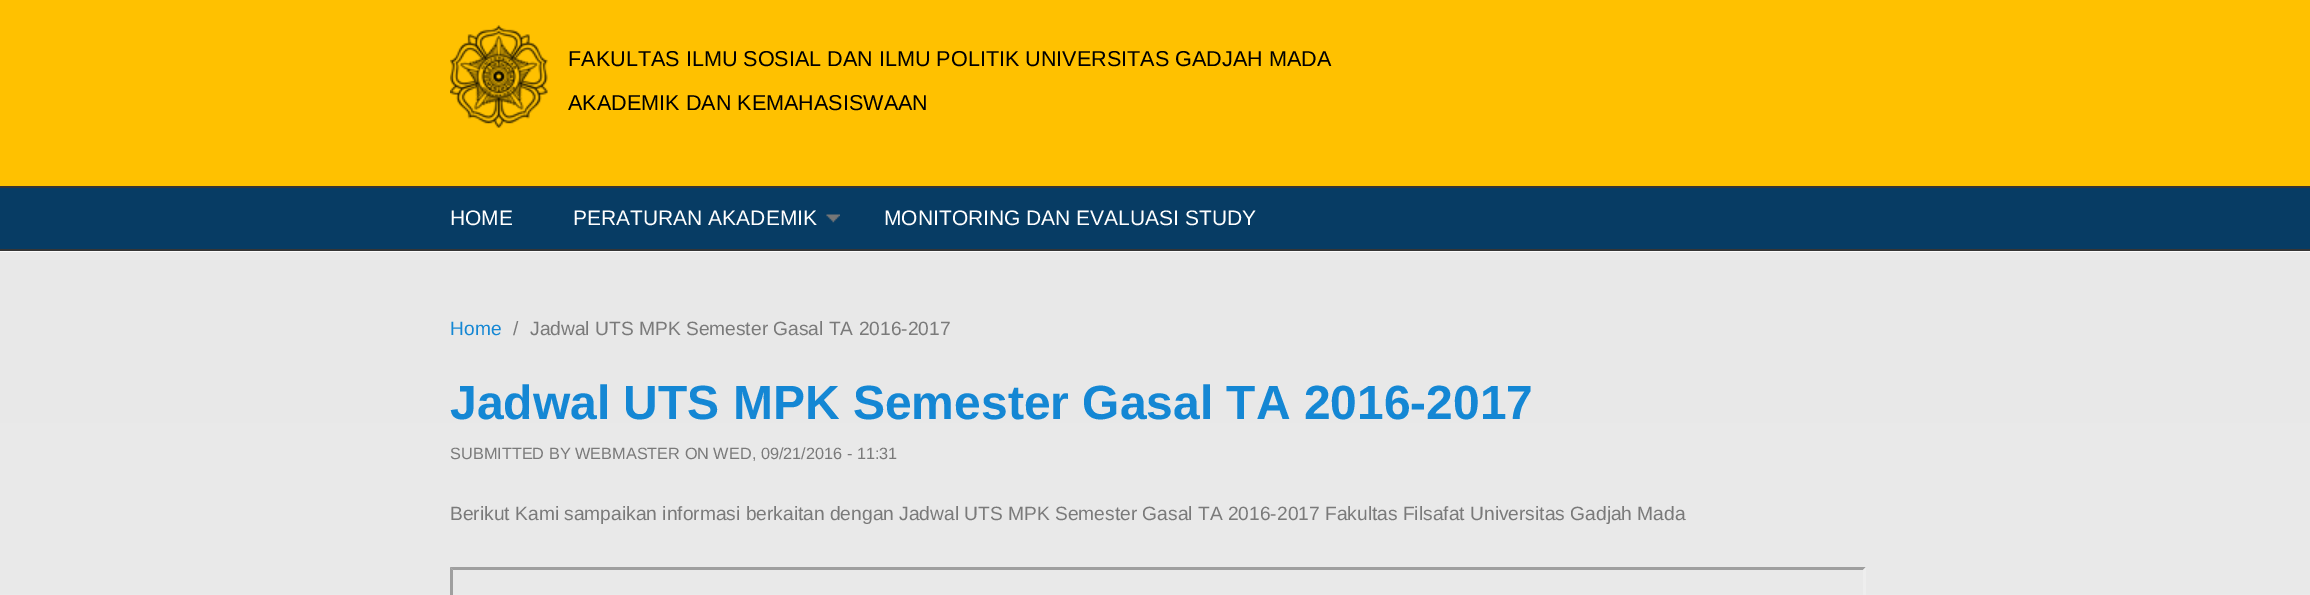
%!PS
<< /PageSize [2310 595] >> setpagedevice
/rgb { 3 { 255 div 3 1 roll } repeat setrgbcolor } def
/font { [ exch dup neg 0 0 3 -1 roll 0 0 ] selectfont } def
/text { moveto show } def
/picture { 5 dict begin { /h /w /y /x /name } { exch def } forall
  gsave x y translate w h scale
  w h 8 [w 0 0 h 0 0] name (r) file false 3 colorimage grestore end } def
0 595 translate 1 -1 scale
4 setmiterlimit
255 193 0 rgb
0 0 2310 595 rectfill
(img_01.rgb) 450 25 98 103 picture
7 60 100 rgb
0 188 2310 61 rectfill
53 53 53 rgb
0 186 2310 2 rectfill
0 249 2310 2 rectfill
(img_02.rgb) 826 214 14 9 picture
252 252 252 rgb
0 251 2310 1 rectfill
gsave 0 252 moveto 2310 0 rlineto 0 343 rlineto -2310 0 rlineto closepath clip newpath
<< /ShadingType 2 /ColorSpace /DeviceRGB /Coords [1155 252 1155 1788] /Extend [true true] /Function << /FunctionType 2 /Domain [0 1] /C0 [0.91 0.91 0.91] /C1 [0.937 0.937 0.937] /N 1 >> >> shfill grestore
159 159 159 rgb
450 567 moveto 1416 0 rlineto -3 3 rlineto -1410 0 rlineto closepath fill
450 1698 moveto 0 -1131 rlineto 3 3 rlineto 0 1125 rlineto closepath fill
238 238 238 rgb
1866 567 moveto 0 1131 rlineto -3 -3 rlineto 0 -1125 rlineto closepath fill
/LiberationSans-Regular 21.6 font
0 0 0 rgb
(FAKULTAS ILMU SOSIAL DAN ILMU POLITIK UNIVERSITAS GADJAH MADA) 568 66 text
(AKADEMIK DAN KEMAHASISWAAN) 568 110 text
/LiberationSans-Regular 21 font
255 255 255 rgb
(HOME) 450 225 text
(PERATURAN AKADEMIK) 573 225 text
(MONITORING DAN EVALUASI STUDY) 884 225 text
/LiberationSans-Regular 19.2 font
20 135 212 rgb
(Home) 450 335 text
122 122 122 rgb
(/) 513 335 text
(Jadwal UTS MPK Semester Gasal TA 2016-2017) 530 335 text
/LiberationSans-Bold 48 font
20 135 212 rgb
(Jadwal UTS MPK Semester Gasal TA 2016-2017) 450 419 text
/LiberationSans-Regular 16.3 font
122 122 122 rgb
(SUBMITTED BY WEBMASTER ON WED, 09/21/2016 - 11:31) 450 459 text
/LiberationSans-Regular 19.2 font
(Berikut Kami sampaikan informasi berkaitan dengan Jadwal UTS MPK Semester Gasal TA 2016-2017 Fakultas Filsafat Universitas Gadjah Mada) 450 520 text
showpage
